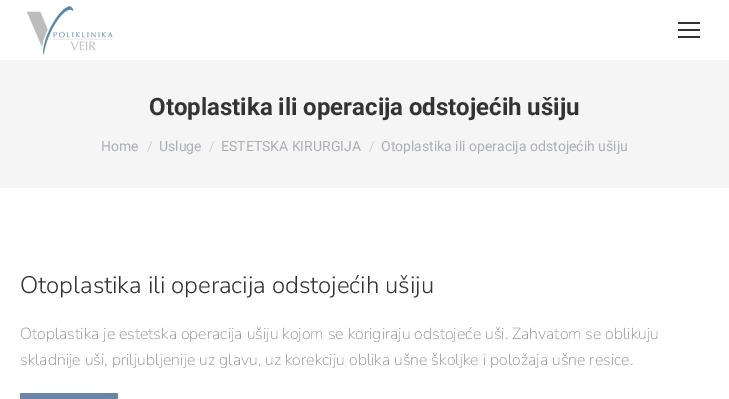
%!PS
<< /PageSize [729 399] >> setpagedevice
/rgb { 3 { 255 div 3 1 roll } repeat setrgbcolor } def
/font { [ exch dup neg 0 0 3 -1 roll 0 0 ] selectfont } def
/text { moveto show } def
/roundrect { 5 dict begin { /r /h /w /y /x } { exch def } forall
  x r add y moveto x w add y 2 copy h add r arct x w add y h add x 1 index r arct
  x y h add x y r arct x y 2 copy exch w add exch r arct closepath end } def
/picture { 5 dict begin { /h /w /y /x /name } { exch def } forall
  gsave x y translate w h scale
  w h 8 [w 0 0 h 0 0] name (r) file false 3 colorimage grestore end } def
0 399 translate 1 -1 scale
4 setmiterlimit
255 255 255 rgb
0 0 729 399 rectfill
(img_01.rgb) 27 6 86 48 picture
51 51 51 rgb
678 22 22 2 rectfill
678 29 22 2 rectfill
678 36 22 2 rectfill
245 245 245 rgb
0 60 729 128 rectfill
105 134 169 rgb
20 393 98 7 1 roundrect fill
/Roboto-Bold 24 font
51 51 51 rgb
(Otoplastika ili operacija odstojećih ušiju) 149 115 text
/Roboto-Regular 14 font
173 175 179 rgb
(Home) 101 151 text
209 210 212 rgb
(/) 147 151 text
173 175 179 rgb
(Usluge) 159 151 text
209 210 212 rgb
(/) 209 151 text
173 175 179 rgb
(ESTETSKA KIRURGIJA) 221 151 text
209 210 212 rgb
(/) 369 151 text
173 175 179 rgb
(Otoplastika ili operacija odstojećih ušiju) 381 151 text
/NunitoSans-Light 24 font
51 51 51 rgb
(Otoplastika ili operacija odstojećih ušiju) 20 293 text
/NunitoSans-ExtraLight 16 font
139 141 148 rgb
(Otoplastika je estetska operacija ušiju kojom se korigiraju odstojeće uši. Zahvatom se oblikuju) 20 339 text
(skladnije uši, priljubljenije uz glavu, uz korekciju oblika ušne školjke i položaja ušne resice.) 20 365 text
showpage
